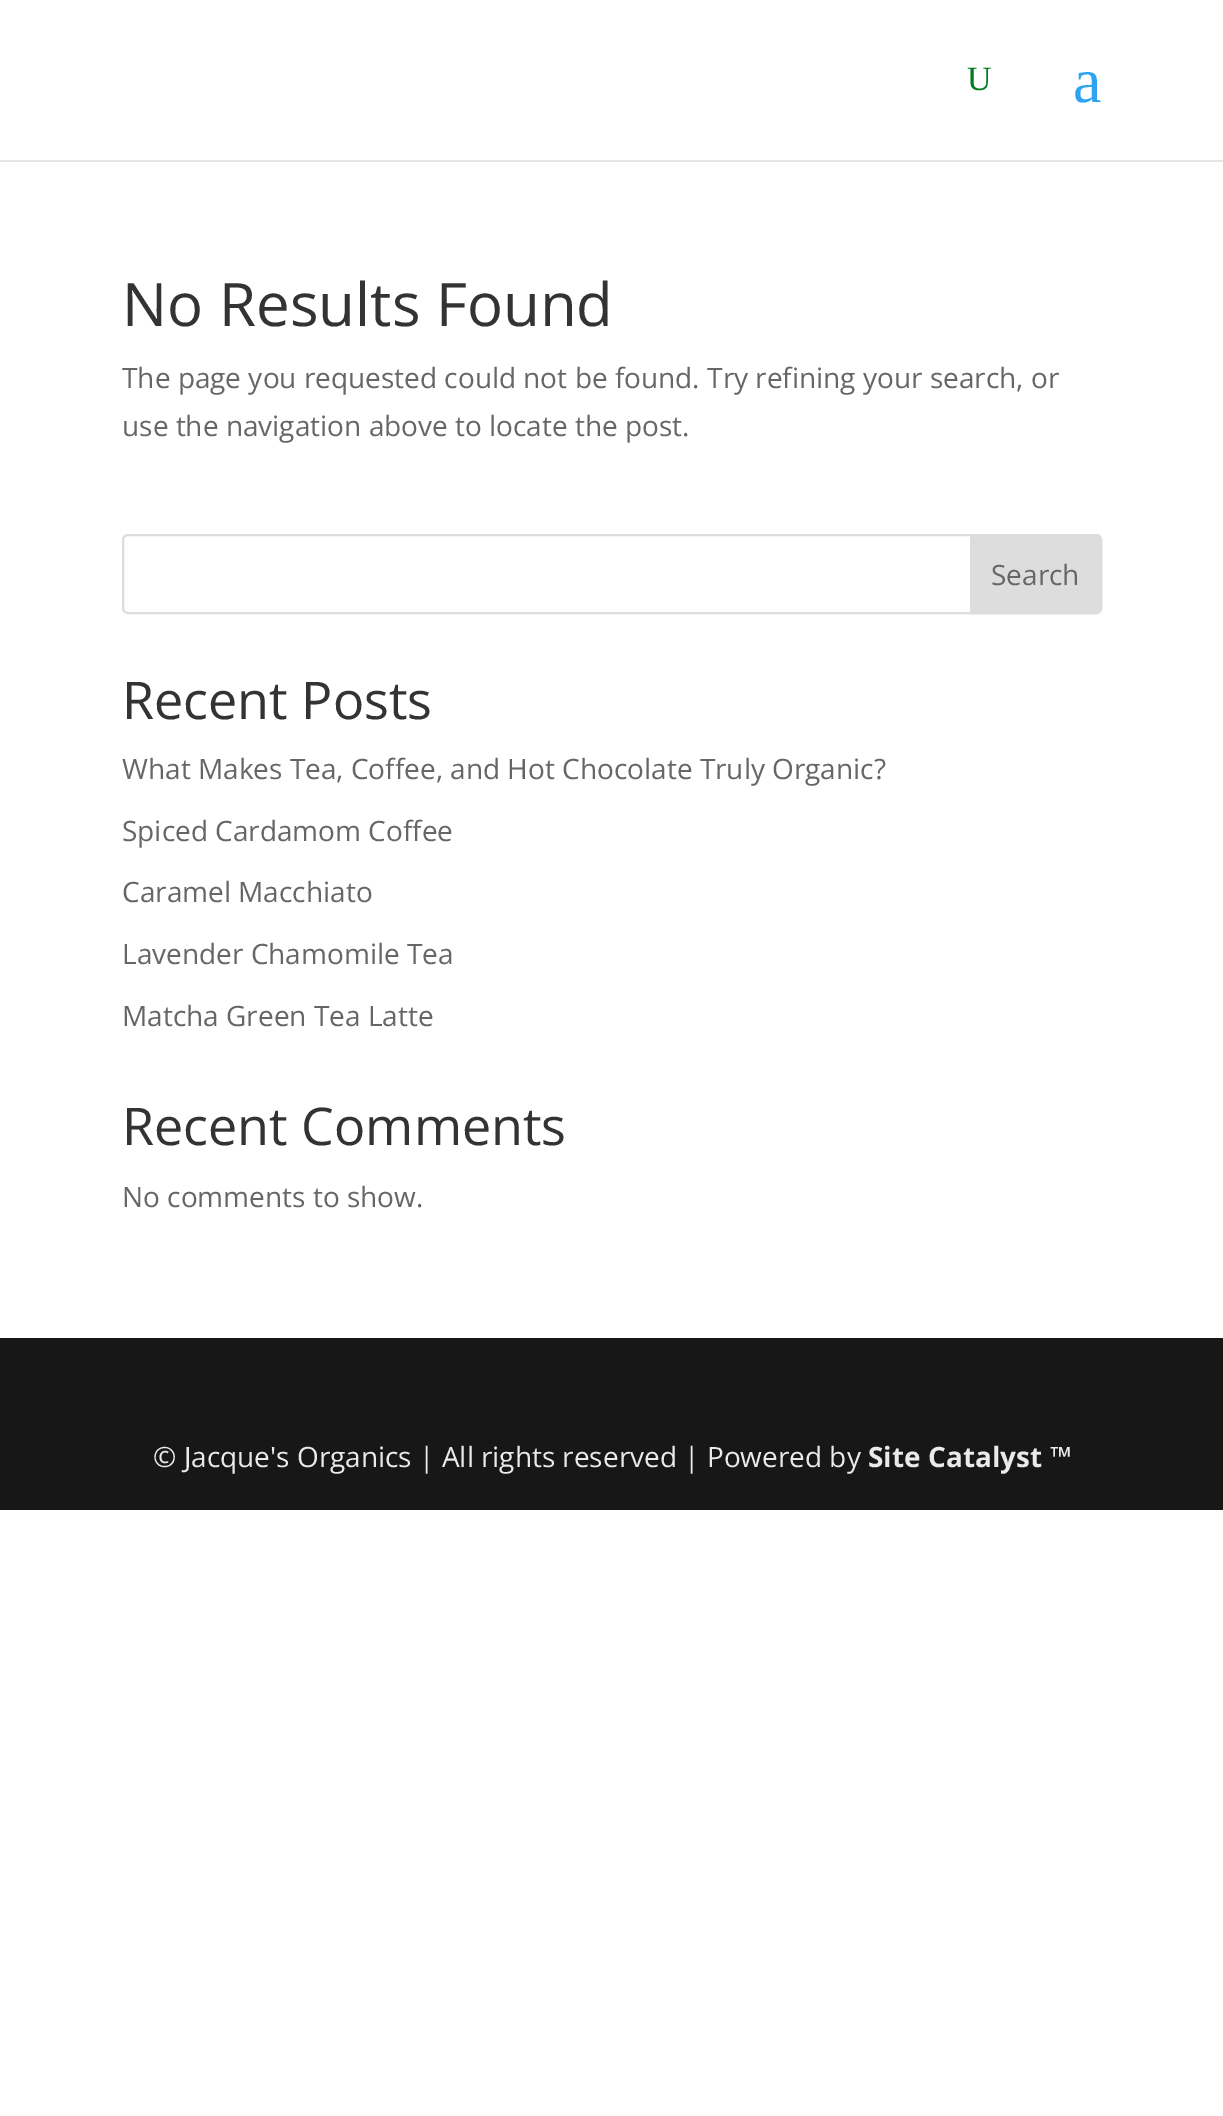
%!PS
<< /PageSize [1223 2116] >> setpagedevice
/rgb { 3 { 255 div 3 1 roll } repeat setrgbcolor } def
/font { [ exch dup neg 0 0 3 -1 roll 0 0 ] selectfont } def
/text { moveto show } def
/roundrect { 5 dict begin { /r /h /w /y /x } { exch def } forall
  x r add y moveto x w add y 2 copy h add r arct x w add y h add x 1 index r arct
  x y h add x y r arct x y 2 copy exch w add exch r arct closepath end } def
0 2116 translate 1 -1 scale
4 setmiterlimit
255 255 255 rgb
0 0 1223 2116 rectfill
230 230 230 rgb
0 160 1223 2 rectfill
221 221 221 rgb
2 setlinewidth
123 535 978 78 5 roundrect stroke
971 535 moveto 125 0 rlineto 3 0 5 2 5 5 rcurveto 0 68 rlineto 0 3 -2 5 -5 5 rcurveto -125 0 rlineto closepath gsave fill grestore
stroke
23 23 23 rgb
0 1338 1223 172 rectfill
/LiberationSerif-Regular 34 font
0 124 29 rgb
(U) 967 90 text
/LiberationSerif-Regular 64 font
46 163 242 rgb
(a) 1073 102 text
/OpenSans-Regular 60 font
51 51 51 rgb
(No Results Found) 122 326 text
/OpenSans-Regular 28 font
102 102 102 rgb
(The page you requested could not be found. Try refining your search, or) 122 388 text
(use the navigation above to locate the post.) 122 436 text
(Search) 991 585 text
/OpenSans-Regular 52 font
51 51 51 rgb
(Recent Posts) 122 719 text
/OpenSans-Regular 28 font
102 102 102 rgb
(What Makes Tea, Coffee, and Hot Chocolate Truly Organic?) 122 779 text
(Spiced Cardamom Coffee) 122 841 text
(Caramel Macchiato) 122 902 text
(Lavender Chamomile Tea) 122 964 text
(Matcha Green Tea Latte) 122 1026 text
/OpenSans-Regular 52 font
51 51 51 rgb
(Recent Comments) 122 1145 text
/OpenSans-Regular 28 font
102 102 102 rgb
(No comments to show.) 122 1207 text
234 234 234 rgb
(© Jacque's Organics | All rights reserved | Powered by) 153 1467 text
/OpenSans-Bold 28 font
(Site Catalyst ™) 868 1467 text
showpage
